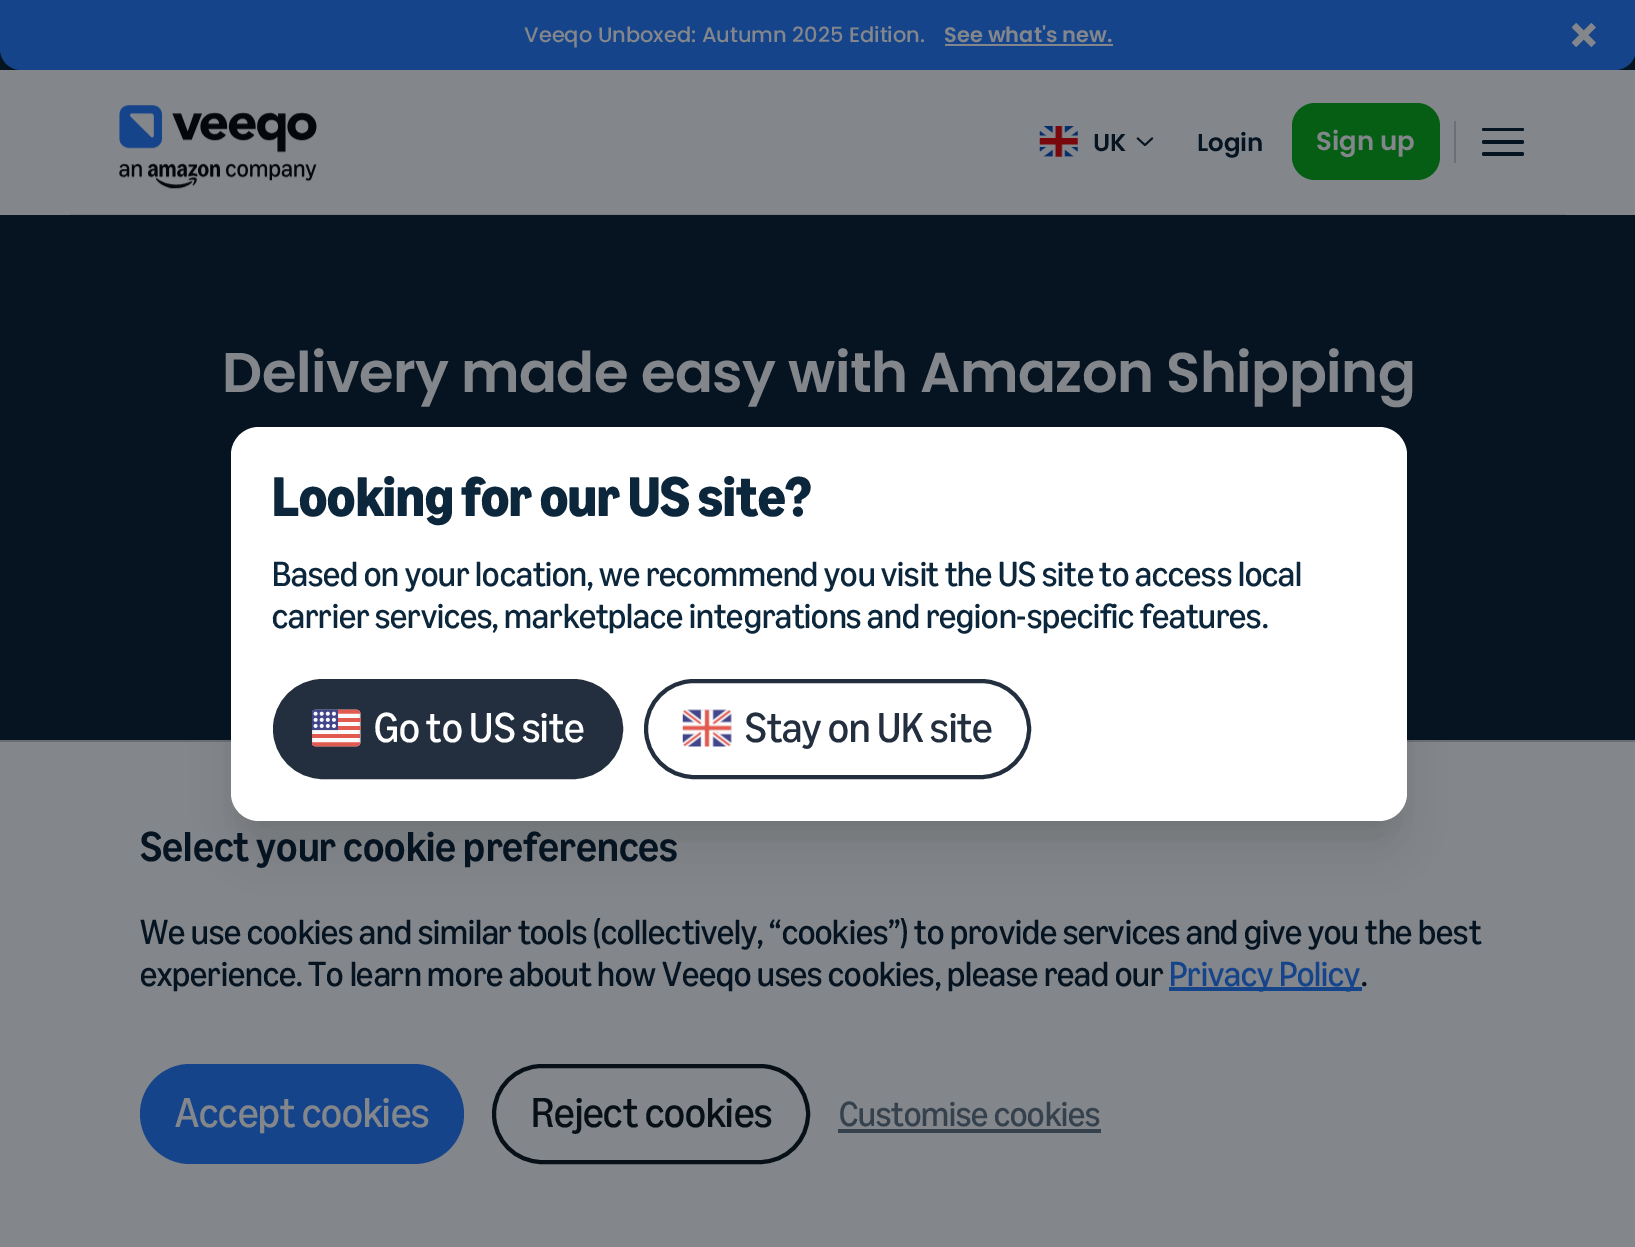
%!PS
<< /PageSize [1635 1247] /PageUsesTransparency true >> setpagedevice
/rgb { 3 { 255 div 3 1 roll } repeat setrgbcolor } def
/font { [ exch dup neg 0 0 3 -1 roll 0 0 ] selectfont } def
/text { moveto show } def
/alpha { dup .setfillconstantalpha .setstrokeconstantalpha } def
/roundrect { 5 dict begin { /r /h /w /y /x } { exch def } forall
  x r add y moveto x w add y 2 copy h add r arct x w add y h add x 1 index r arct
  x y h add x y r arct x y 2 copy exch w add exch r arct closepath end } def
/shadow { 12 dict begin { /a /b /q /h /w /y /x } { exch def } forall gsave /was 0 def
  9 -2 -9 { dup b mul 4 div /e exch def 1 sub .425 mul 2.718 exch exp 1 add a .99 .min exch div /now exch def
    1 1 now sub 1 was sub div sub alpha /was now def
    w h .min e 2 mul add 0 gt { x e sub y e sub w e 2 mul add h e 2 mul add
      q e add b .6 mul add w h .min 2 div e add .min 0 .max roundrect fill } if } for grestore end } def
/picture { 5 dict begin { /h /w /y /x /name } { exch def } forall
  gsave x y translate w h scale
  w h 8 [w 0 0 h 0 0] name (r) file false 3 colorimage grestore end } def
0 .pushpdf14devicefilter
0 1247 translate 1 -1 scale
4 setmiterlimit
6 20 34 rgb
0 0 1635 1247 rectfill
22 68 139 rgb
0 0 moveto 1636 0 rlineto 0 49 rlineto 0 11.5 -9.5 21 -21 21 rcurveto -1594 0 rlineto -11.5 0 -21 -9.5 -21 -21 rcurveto closepath fill
131 135 139 rgb
945 44 168 2 rectfill
(img_01.rgb) 1572 23 24 24 picture
0 70 1635 145 rectfill
119 124 129 rgb
70 214 1496 1 rectfill
(img_02.rgb) 119 105 198 84 picture
(img_03.rgb) 1039 126 39 31 picture
(img_04.rgb) 1136 137 18 10 picture
6 94 21 rgb
1292 103 148 77 23 roundrect fill
106 112 118 rgb
1454 121 2 42 rectfill
6 20 34 rgb
1482 128 42 3 1.5 roundrect fill
1482 140 42 4 2 roundrect fill
1482 152 42 4 2 roundrect fill
131 135 139 rgb
0 742 1635 505 rectfill
105 109 113 rgb
0 740 1635 2 rectfill
0 0 0 rgb
242 452 1155 372 18 9 0.1 shadow
240 471 1158 376 19 22 0.1 shadow
255 255 255 rgb
231 427 1176 394 28 roundrect fill
35 47 62 rgb
275 681 346 96 48 roundrect gsave fill grestore
4 setlinewidth
stroke
(img_05.rgb) 312 709 49 38 picture
646 681 383 96 48 roundrect stroke
(img_06.rgb) 682 709 50 38 picture
22 68 139 rgb
1169 987 193 4 rectfill
140 1064 324 100 50 roundrect fill
7 15 23 rgb
494 1066 314 96 48 roundrect stroke
53 65 76 rgb
838 1129 263 4 rectfill
/Poppins-Medium 21 font
131 135 139 rgb
(Veeqo Unboxed: Autumn 2025 Edition.) 524 42 text
/Poppins-SemiBold 21 font
(See what's new.) 944 42 text
/Poppins-SemiBold 24.5 font
6 20 34 rgb
(UK) 1093 151 text
(Login) 1197 151 text
/Poppins-SemiBold 26 font
131 135 139 rgb
(Sign up) 1316 150 text
/Poppins-SemiBold 56 font
222 392 moveto -0.55 0 (Delivery made easy with Amazon Shipping) ashow
/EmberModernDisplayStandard-Bold 56 font
12 39 60 rgb
(Looking for our US site?) 272 516 text
/EmberModernDisplayStandard-Regular 35 font
(Based on your location, we recommend you visit the US site to access local) 272 586 text
(carrier services, marketplace integrations and region-specific features.) 272 628 text
/EmberModernDisplayStandard-Regular 42 font
255 255 255 rgb
(Go to US site) 374 742 text
35 47 62 rgb
(Stay on UK site) 745 742 text
/EmberModernDisplayStandard-Medium 42 font
6 20 34 rgb
(Select your cookie preferences) 140 861 text
/EmberModernDisplayStandard-Regular 35 font
(We use cookies and similar tools \(collectively, “cookies”\) to provide services and give you the best) 140 944 text
(experience. To learn more about how Veeqo uses cookies, please read our) 140 986 text
22 68 139 rgb
(Privacy Policy) 1169 986 text
6 20 34 rgb
(.) 1361 986 text
/EmberModernDisplayStandard-Regular 42 font
131 135 139 rgb
(Accept cookies) 175 1127 text
7 15 23 rgb
(Reject cookies) 531 1127 text
/EmberModernDisplayStandard-Regular 35 font
53 65 76 rgb
(Customise cookies) 839 1126 text
.poppdf14devicefilter showpage
